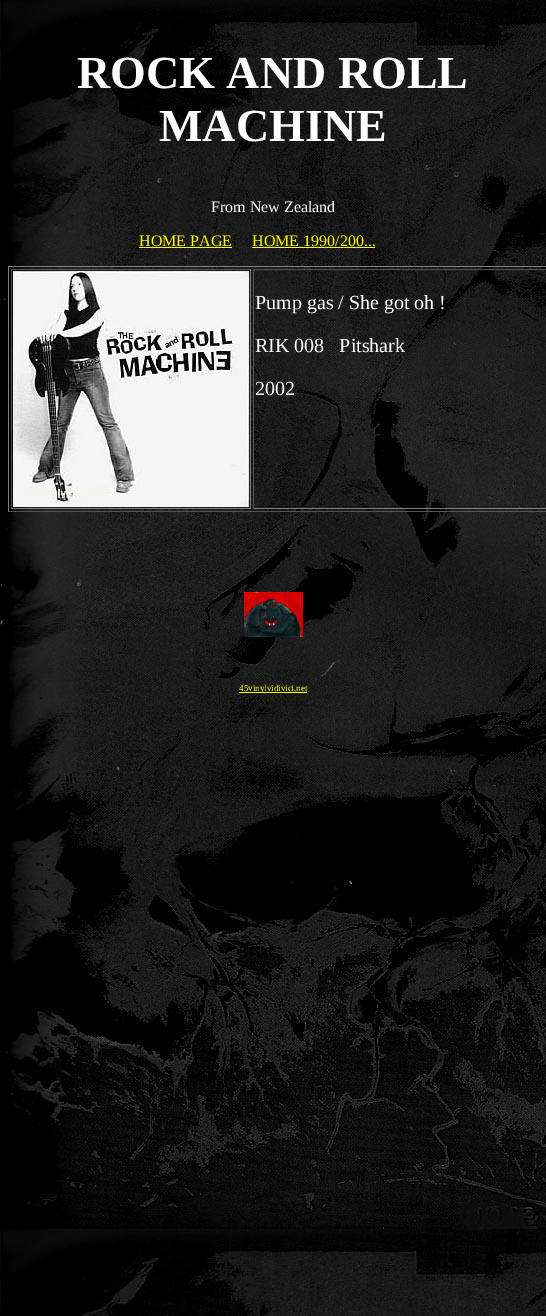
%!PS
<< /PageSize [546 1316] >> setpagedevice
/rgb { 3 { 255 div 3 1 roll } repeat setrgbcolor } def
/font { [ exch dup neg 0 0 3 -1 roll 0 0 ] selectfont } def
/text { moveto show } def
/picture { 5 dict begin { /h /w /y /x /name } { exch def } forall
  gsave x y translate w h scale
  w h 8 [w 0 0 h 0 0] name (r) file false 3 colorimage grestore end } def
0 1316 translate 1 -1 scale
4 setmiterlimit
255 255 255 rgb
0 0 546 1316 rectfill
(img_01.rgb) 0 0 546 1316 picture
255 255 0 rgb
139 247 93 1 rectfill
252 247 123 1 rectfill
128 128 128 rgb
8 266 538 1 rectfill
85 85 85 rgb
8 511 538 1 rectfill
128 128 128 rgb
8 266 1 246 rectfill
85 85 85 rgb
11 269 240 1 rectfill
128 128 128 rgb
250 269 1 240 rectfill
11 508 240 1 rectfill
85 85 85 rgb
11 269 1 240 rectfill
(img_02.rgb) 13 271 236 236 picture
253 269 293 1 rectfill
128 128 128 rgb
253 508 293 1 rectfill
85 85 85 rgb
253 269 1 240 rectfill
(img_03.rgb) 244 592 59 45 picture
255 255 0 rgb
239 692 68 1 rectfill
/LiberationSerif-Bold 46 font
255 255 255 rgb
(ROCK AND ROLL) 77 88 text
(MACHINE) 159 141 text
/LiberationSerif-Regular 16 font
(From New Zealand) 211 212 text
255 255 0 rgb
(HOME PAGE) 139 246 text
(HOME 1990/200...) 252 246 text
/LiberationSerif-Regular 20 font
255 255 255 rgb
(Pump gas / She got oh !) 255 309 text
(RIK 008   Pitshark) 255 352 text
(2002) 255 395 text
/LiberationSerif-Regular 9 font
255 255 0 rgb
(45vinylvidivici.net) 239 691 text
showpage
